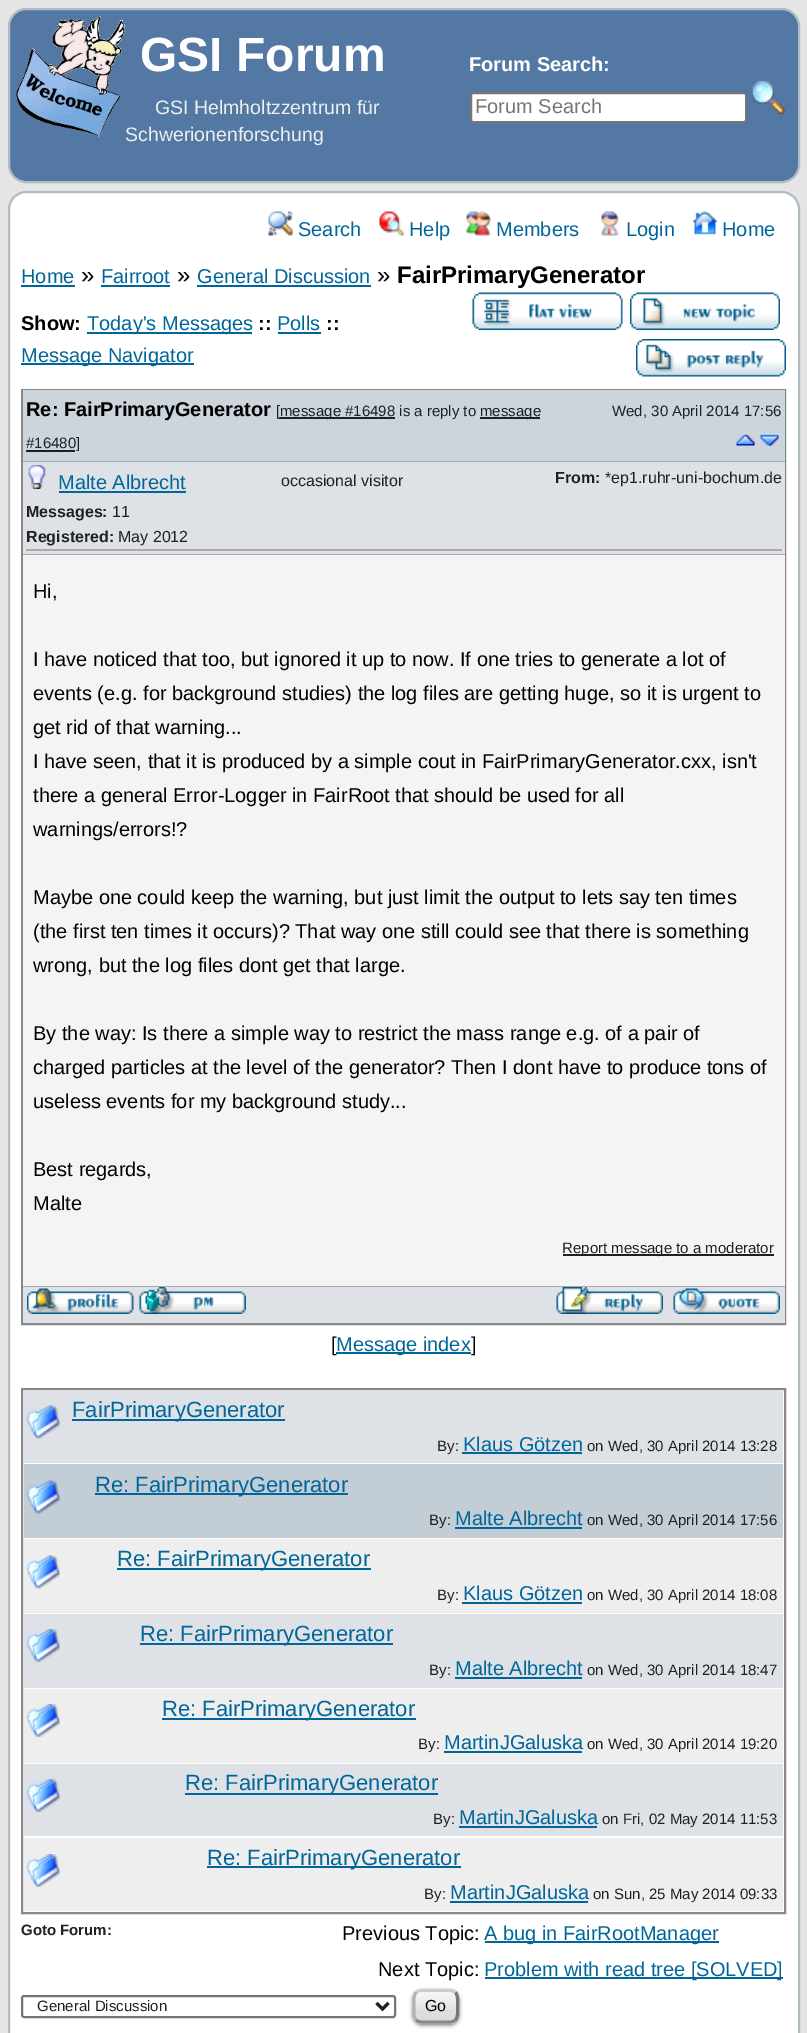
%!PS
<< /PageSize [807 2033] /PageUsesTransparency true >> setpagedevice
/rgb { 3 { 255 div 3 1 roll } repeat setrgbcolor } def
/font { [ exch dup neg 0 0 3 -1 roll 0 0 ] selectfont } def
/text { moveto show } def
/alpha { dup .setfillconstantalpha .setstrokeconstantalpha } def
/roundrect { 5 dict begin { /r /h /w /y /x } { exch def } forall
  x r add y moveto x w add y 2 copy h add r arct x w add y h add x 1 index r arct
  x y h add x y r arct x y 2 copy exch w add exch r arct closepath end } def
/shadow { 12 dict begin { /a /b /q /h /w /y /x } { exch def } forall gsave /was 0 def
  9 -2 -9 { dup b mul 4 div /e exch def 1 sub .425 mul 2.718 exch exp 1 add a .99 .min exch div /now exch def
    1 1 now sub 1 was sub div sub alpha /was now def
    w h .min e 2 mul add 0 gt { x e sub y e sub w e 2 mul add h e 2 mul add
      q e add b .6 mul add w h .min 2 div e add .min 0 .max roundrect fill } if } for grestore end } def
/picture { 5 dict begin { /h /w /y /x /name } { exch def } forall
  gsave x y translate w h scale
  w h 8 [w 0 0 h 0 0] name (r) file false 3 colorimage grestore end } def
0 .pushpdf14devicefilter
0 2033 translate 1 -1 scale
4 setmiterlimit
229 229 229 rgb
0 0 807 2033 rectfill
84 120 164 rgb
9 9 790 173 17 roundrect gsave fill grestore
174 189 196 rgb
2 setlinewidth
stroke
(img_01.rgb) 16 16 109 121 picture
255 255 255 rgb
471 93 275 29 2 roundrect gsave fill grestore
118 118 118 rgb
stroke
(img_02.rgb) 751 81 34 33 picture
255 255 255 rgb
9 192 790 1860 17 roundrect gsave fill grestore
174 189 196 rgb
stroke
(img_03.rgb) 268 211 25 25 picture
(img_04.rgb) 379 211 25 25 picture
(img_05.rgb) 466 211 25 25 picture
(img_06.rgb) 601 211 18 25 picture
(img_07.rgb) 693 211 24 24 picture
0 102 153 rgb
21 285 54 2 rectfill
101 285 69 2 rectfill
197 285 174 2 rectfill
87 332 165 2 rectfill
278 332 43 2 rectfill
21 363 173 2 rectfill
(img_08.rgb) 472 292 151 38 picture
(img_09.rgb) 630 292 150 38 picture
(img_10.rgb) 636 339 150 38 picture
136 136 136 rgb
22 390 763 934 rectstroke
204 212 220 rgb
23 390 762 71 rectfill
170 170 170 rgb
23 461 762 1 rectfill
32 32 32 rgb
279 417 116 2 rectfill
480 417 60 2 rectfill
26 450 49 2 rectfill
(img_11.rgb) 736 434 19 12 picture
(img_12.rgb) 760 434 19 12 picture
222 226 230 rgb
23 462 762 92 rectfill
170 170 170 rgb
23 554 762 1 rectfill
26 549 756 2 rectfill
(img_13.rgb) 28 465 18 24 picture
0 102 153 rgb
59 491 127 2 rectfill
244 244 244 rgb
23 555 762 731 rectfill
170 170 170 rgb
23 1286 762 1 rectfill
32 32 32 rgb
563 1254 211 2 rectfill
222 226 230 rgb
23 1287 762 36 rectfill
(img_14.rgb) 27 1288 107 26 picture
(img_15.rgb) 139 1287 107 27 picture
(img_16.rgb) 556 1287 107 27 picture
(img_17.rgb) 673 1288 107 26 picture
136 136 136 rgb
22 1389 763 524 rectstroke
222 226 230 rgb
24 1391 759 72 rectfill
(img_18.rgb) 27 1405 33 34 picture
0 102 153 rgb
72 1419 213 2 rectfill
462 1452 120 2 rectfill
194 205 214 rgb
24 1464 759 74 rectfill
(img_19.rgb) 27 1480 33 34 picture
0 102 153 rgb
95 1493 253 2 rectfill
455 1527 127 2 rectfill
238 238 238 rgb
24 1539 759 74 rectfill
(img_20.rgb) 27 1555 33 34 picture
0 102 153 rgb
117 1568 254 2 rectfill
462 1602 120 2 rectfill
222 226 230 rgb
24 1614 759 74 rectfill
(img_21.rgb) 27 1629 33 33 picture
0 102 153 rgb
140 1643 253 2 rectfill
455 1677 127 2 rectfill
238 238 238 rgb
24 1689 759 74 rectfill
(img_22.rgb) 27 1704 33 33 picture
0 102 153 rgb
162 1718 254 2 rectfill
444 1751 138 2 rectfill
222 226 230 rgb
24 1764 759 72 rectfill
(img_21.rgb) 27 1779 33 33 picture
0 102 153 rgb
185 1793 253 2 rectfill
459 1826 138 2 rectfill
238 238 238 rgb
24 1838 759 73 rectfill
(img_22.rgb) 27 1854 33 33 picture
0 102 153 rgb
207 1866 254 2 rectfill
450 1901 138 2 rectfill
485 1941 234 2 rectfill
485 1977 298 2 rectfill
118 118 118 rgb
22 1996 373 21 2 roundrect stroke
32 32 32 rgb
3 setlinewidth
376.5 2003 moveto 6 6 rlineto 6 -6 rlineto stroke
0 0 0 rgb
413 1991 46 34 9 2 0.6 shadow
221 221 221 rgb
413 1989 46 35 9 roundrect fill
(img_23.rgb) 413 1992 46 18 picture
204 204 204 rgb
416 1992.5 moveto 1.5 -1 3.5 -2 5.5 -2 rcurveto 28.5 0 rlineto 2 0 4 1 5.5 2 rcurveto stroke
120 119 120 rgb
455.5 1992.5 moveto 3 3.5 2 9.5 2 13.5 rcurveto 0 4.5 1 10.5 -2 14 rcurveto stroke
136 136 136 rgb
455.5 2020 moveto -1.5 1 -3.5 2 -5.5 2 rcurveto -28.5 0 rlineto -2 0 -4 -1 -5.5 -2 rcurveto stroke
180 178 180 rgb
416 2020 moveto -3 -3.5 -2 -9.5 -2 -14 rcurveto 0 -4 -1 -10 2 -13.5 rcurveto stroke
/LiberationSans-Bold 48 font
255 255 255 rgb
(GSI Forum) 140 71 text
/LiberationSans-Bold 20 font
(Forum Search:) 469 71 text
/LiberationSans-Regular 20 font
117 117 117 rgb
(Forum Search) 475 113 text
/LiberationSans-Regular 19.5 font
238 238 238 rgb
(GSI Helmholtzzentrum für) 155 114 text
(Schwerionenforschung) 125 141 text
/LiberationSans-Regular 20 font
0 102 153 rgb
(Search) 298 236 text
(Help) 409 236 text
(Members) 496 236 text
(Login) 626 236 text
(Home) 722 236 text
(Home) 21 283 text
/LiberationSans-Regular 24 font
0 0 0 rgb
(») 81 283 text
/LiberationSans-Regular 20 font
0 102 153 rgb
(Fairroot) 101 283 text
/LiberationSans-Regular 24 font
0 0 0 rgb
(») 177 283 text
/LiberationSans-Regular 20 font
0 102 153 rgb
(General Discussion) 197 283 text
/LiberationSans-Regular 24 font
0 0 0 rgb
(») 377 283 text
/LiberationSans-Bold 24 font
(FairPrimaryGenerator) 397 283 text
/LiberationSans-Bold 20 font
(Show:) 21 330 text
/LiberationSans-Regular 20 font
0 102 153 rgb
(Today's Messages) 87 330 text
/LiberationSans-Bold 20 font
0 0 0 rgb
(::) 258 330 text
/LiberationSans-Regular 20 font
0 102 153 rgb
(Polls) 277 330 text
/LiberationSans-Bold 20 font
0 0 0 rgb
(::) 326 330 text
/LiberationSans-Regular 20 font
0 102 153 rgb
(Message Navigator) 21 362 text
/LiberationSans-Bold 20 font
0 0 0 rgb
(Re: FairPrimaryGenerator) 26 416 text
/LiberationSans-Regular 15 font
32 32 32 rgb
([) 276 416 text
(message #16498 is a reply to) 280 416 text
(message) 480 416 text
(#16480]) 26 448 text
(Wed, 30 April 2014 17:56) 612 416 text
/LiberationSans-Regular 20 font
0 102 153 rgb
(Malte Albrecht) 58 489 text
/LiberationSans-Bold 16 font
32 32 32 rgb
(Messages:) 26 517 text
/LiberationSans-Regular 16 font
(11) 112 517 text
/LiberationSans-Bold 16 font
(Registered:) 26 542 text
/LiberationSans-Regular 16 font
(May 2012) 118 542 text
(occasional visitor) 281 486 text
/LiberationSans-Bold 16 font
(From:) 555 483 text
/LiberationSans-Regular 16 font
(*ep1.ruhr-uni-bochum.de) 605 483 text
/LiberationSans-Regular 20 font
0 0 0 rgb
(Hi,) 33 598 text
(I have noticed that too, but ignored it up to now. If one tries to generate a lot of) 33 666 text
(events \(e.g. for background studies\) the log files are getting huge, so it is urgent to) 33 700 text
(get rid of that warning...) 33 734 text
(I have seen, that it is produced by a simple cout in FairPrimaryGenerator.cxx, isn't) 33 768 text
(there a general Error-Logger in FairRoot that should be used for all) 33 802 text
(warnings/errors!?) 33 836 text
(Maybe one could keep the warning, but just limit the output to lets say ten times) 33 904 text
(\(the first ten times it occurs\)? That way one still could see that there is something) 33 938 text
(wrong, but the log files dont get that large.) 33 972 text
(By the way: Is there a simple way to restrict the mass range e.g. of a pair of) 33 1040 text
(charged particles at the level of the generator? Then I dont have to produce tons of) 33 1074 text
(useless events for my background study...) 33 1108 text
(Best regards,) 33 1176 text
(Malte) 33 1210 text
/LiberationSans-Regular 15 font
32 32 32 rgb
(Report message to a moderator) 562 1253 text
/LiberationSans-Regular 20 font
0 0 0 rgb
([) 331 1351 text
0 102 153 rgb
336 1352 135 2 rectfill
(Message index) 336 1351 text
0 0 0 rgb
(]) 471 1351 text
/LiberationSans-Regular 22 font
0 102 153 rgb
(FairPrimaryGenerator) 72 1417 text
/LiberationSans-Regular 15 font
32 32 32 rgb
(By:) 437 1451 text
/LiberationSans-Regular 20 font
0 102 153 rgb
(Klaus Götzen) 463 1451 text
/LiberationSans-Regular 15 font
32 32 32 rgb
(on Wed, 30 April 2014 13:28) 587 1451 text
/LiberationSans-Regular 22 font
0 102 153 rgb
(Re: FairPrimaryGenerator) 95 1492 text
/LiberationSans-Regular 15 font
32 32 32 rgb
(By:) 429 1525 text
/LiberationSans-Regular 20 font
0 102 153 rgb
(Malte Albrecht) 455 1525 text
/LiberationSans-Regular 15 font
32 32 32 rgb
(on Wed, 30 April 2014 17:56) 587 1525 text
/LiberationSans-Regular 22 font
0 102 153 rgb
(Re: FairPrimaryGenerator) 117 1566 text
/LiberationSans-Regular 15 font
32 32 32 rgb
(By:) 437 1600 text
/LiberationSans-Regular 20 font
0 102 153 rgb
(Klaus Götzen) 463 1600 text
/LiberationSans-Regular 15 font
32 32 32 rgb
(on Wed, 30 April 2014 18:08) 587 1600 text
/LiberationSans-Regular 22 font
0 102 153 rgb
(Re: FairPrimaryGenerator) 140 1641 text
/LiberationSans-Regular 15 font
32 32 32 rgb
(By:) 429 1675 text
/LiberationSans-Regular 20 font
0 102 153 rgb
(Malte Albrecht) 455 1675 text
/LiberationSans-Regular 15 font
32 32 32 rgb
(on Wed, 30 April 2014 18:47) 587 1675 text
/LiberationSans-Regular 22 font
0 102 153 rgb
(Re: FairPrimaryGenerator) 162 1716 text
/LiberationSans-Regular 15 font
32 32 32 rgb
(By:) 418 1749 text
/LiberationSans-Regular 20 font
0 102 153 rgb
(MartinJGaluska) 444 1749 text
/LiberationSans-Regular 15 font
32 32 32 rgb
(on Wed, 30 April 2014 19:20) 587 1749 text
/LiberationSans-Regular 22 font
0 102 153 rgb
(Re: FairPrimaryGenerator) 185 1790 text
/LiberationSans-Regular 15 font
32 32 32 rgb
(By:) 433 1824 text
/LiberationSans-Regular 20 font
0 102 153 rgb
(MartinJGaluska) 459 1824 text
/LiberationSans-Regular 15 font
32 32 32 rgb
(on Fri, 02 May 2014 11:53) 602 1824 text
/LiberationSans-Regular 22 font
0 102 153 rgb
(Re: FairPrimaryGenerator) 207 1865 text
/LiberationSans-Regular 15 font
32 32 32 rgb
(By:) 424 1899 text
/LiberationSans-Regular 20 font
0 102 153 rgb
(MartinJGaluska) 450 1899 text
/LiberationSans-Regular 15 font
32 32 32 rgb
(on Sun, 25 May 2014 09:33) 593 1899 text
/LiberationSans-Bold 15 font
(Goto Forum:) 21 1935 text
/LiberationSans-Regular 20 font
0 0 0 rgb
(Previous Topic:) 342 1940 text
0 102 153 rgb
(A bug in FairRootManager) 484 1940 text
0 0 0 rgb
(Next Topic:) 378 1976 text
0 102 153 rgb
(Problem with read tree [SOLVED]) 484 1976 text
/LiberationSans-Regular 15 font
32 32 32 rgb
(General Discussion) 37 2011 text
/LiberationSans-Regular 16 font
0 0 0 rgb
(Go) 425 2011 text
.poppdf14devicefilter showpage
